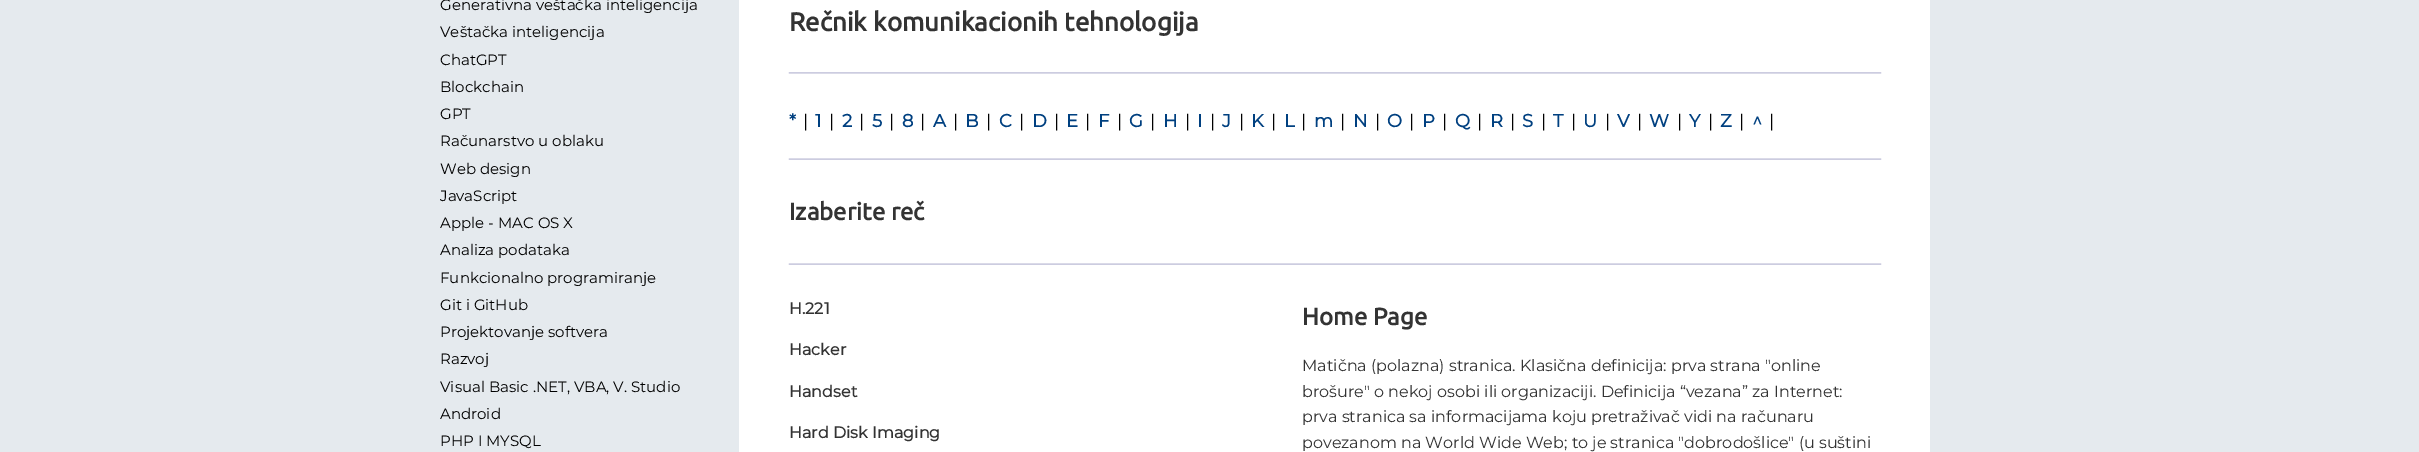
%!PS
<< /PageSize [2419 452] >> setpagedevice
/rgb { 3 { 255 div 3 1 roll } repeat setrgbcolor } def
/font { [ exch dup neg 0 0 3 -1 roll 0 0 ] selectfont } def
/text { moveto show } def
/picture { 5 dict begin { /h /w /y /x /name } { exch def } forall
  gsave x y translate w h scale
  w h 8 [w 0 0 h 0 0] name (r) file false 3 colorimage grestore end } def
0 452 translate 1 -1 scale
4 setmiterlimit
229 234 238 rgb
0 0 2419 452 rectfill
255 255 255 rgb
739 0 1191 452 rectfill
(img_01.rgb) 788 72 1094 2 picture
(img_02.rgb) 788 158 1094 2 picture
(img_02.rgb) 788 263 1094 2 picture
/Montserrat-Regular 15 font
0 0 0 rgb
(Generativna veštačka inteligencija) 440 10 text
(Veštačka inteligencija) 440 37 text
(ChatGPT) 440 65 text
(Blockchain) 440 92 text
(GPT) 440 119 text
(Računarstvo u oblaku) 440 146 text
(Web design) 440 174 text
(JavaScript) 440 201 text
(Apple - MAC OS X) 440 228 text
(Analiza podataka) 440 255 text
(Funkcionalno programiranje) 440 283 text
(Git i GitHub) 440 310 text
(Projektovanje softvera) 440 337 text
(Razvoj) 440 364 text
(Visual Basic .NET, VBA, V. Studio) 440 392 text
(Android) 440 419 text
(PHP I MYSQL) 440 446 text
/Ubuntu-Bold 26 font
51 51 51 rgb
(Rečnik komunikacionih tehnologija) 789 31 text
/Montserrat-Bold 18 font
0 64 128 rgb
789 127 moveto 1 0 (*) ashow
/Montserrat-Regular 18 font
0 0 0 rgb
803 127 moveto 1 0 (|) ashow
/Montserrat-Bold 18 font
0 64 128 rgb
815 127 moveto 1 0 (1) ashow
/Montserrat-Regular 18 font
0 0 0 rgb
829 127 moveto 1 0 (|) ashow
/Montserrat-Bold 18 font
0 64 128 rgb
842 127 moveto 1 0 (2) ashow
/Montserrat-Regular 18 font
0 0 0 rgb
859 127 moveto 1 0 (|) ashow
/Montserrat-Bold 18 font
0 64 128 rgb
872 127 moveto 1 0 (5) ashow
/Montserrat-Regular 18 font
0 0 0 rgb
889 127 moveto 1 0 (|) ashow
/Montserrat-Bold 18 font
0 64 128 rgb
902 127 moveto 1 0 (8) ashow
/Montserrat-Regular 18 font
0 0 0 rgb
920 127 moveto 1 0 (|) ashow
/Montserrat-Bold 18 font
0 64 128 rgb
933 127 moveto 1 0 (A) ashow
/Montserrat-Regular 18 font
0 0 0 rgb
953 127 moveto 1 0 (|) ashow
/Montserrat-Bold 18 font
0 64 128 rgb
965 127 moveto 1 0 (B) ashow
/Montserrat-Regular 18 font
0 0 0 rgb
986 127 moveto 1 0 (|) ashow
/Montserrat-Bold 18 font
0 64 128 rgb
999 127 moveto 1 0 (C) ashow
/Montserrat-Regular 18 font
0 0 0 rgb
1019 127 moveto 1 0 (|) ashow
/Montserrat-Bold 18 font
0 64 128 rgb
1032 127 moveto 1 0 (D) ashow
/Montserrat-Regular 18 font
0 0 0 rgb
1054 127 moveto 1 0 (|) ashow
/Montserrat-Bold 18 font
0 64 128 rgb
1066 127 moveto 1 0 (E) ashow
/Montserrat-Regular 18 font
0 0 0 rgb
1085 127 moveto 1 0 (|) ashow
/Montserrat-Bold 18 font
0 64 128 rgb
1098 127 moveto 1 0 (F) ashow
/Montserrat-Regular 18 font
0 0 0 rgb
1117 127 moveto 1 0 (|) ashow
/Montserrat-Bold 18 font
0 64 128 rgb
1129 127 moveto 1 0 (G) ashow
/Montserrat-Regular 18 font
0 0 0 rgb
1150 127 moveto 1 0 (|) ashow
/Montserrat-Bold 18 font
0 64 128 rgb
1163 127 moveto 1 0 (H) ashow
/Montserrat-Regular 18 font
0 0 0 rgb
1185 127 moveto 1 0 (|) ashow
/Montserrat-Bold 18 font
0 64 128 rgb
1197 127 moveto 1 0 (I) ashow
/Montserrat-Regular 18 font
0 0 0 rgb
1210 127 moveto 1 0 (|) ashow
/Montserrat-Bold 18 font
0 64 128 rgb
1222 127 moveto 1 0 (J) ashow
/Montserrat-Regular 18 font
0 0 0 rgb
1239 127 moveto 1 0 (|) ashow
/Montserrat-Bold 18 font
0 64 128 rgb
1251 127 moveto 1 0 (K) ashow
/Montserrat-Regular 18 font
0 0 0 rgb
1271 127 moveto 1 0 (|) ashow
/Montserrat-Bold 18 font
0 64 128 rgb
1284 127 moveto 1 0 (L) ashow
/Montserrat-Regular 18 font
0 0 0 rgb
1301 127 moveto 1 0 (|) ashow
/Montserrat-Bold 18 font
0 64 128 rgb
1314 127 moveto 1 0 (m) ashow
/Montserrat-Regular 18 font
0 0 0 rgb
1340 127 moveto 1 0 (|) ashow
/Montserrat-Bold 18 font
0 64 128 rgb
1353 127 moveto 1 0 (N) ashow
/Montserrat-Regular 18 font
0 0 0 rgb
1375 127 moveto 1 0 (|) ashow
/Montserrat-Bold 18 font
0 64 128 rgb
1387 127 moveto 1 0 (O) ashow
/Montserrat-Regular 18 font
0 0 0 rgb
1409 127 moveto 1 0 (|) ashow
/Montserrat-Bold 18 font
0 64 128 rgb
1422 127 moveto 1 0 (P) ashow
/Montserrat-Regular 18 font
0 0 0 rgb
1442 127 moveto 1 0 (|) ashow
/Montserrat-Bold 18 font
0 64 128 rgb
1455 127 moveto 1 0 (Q) ashow
/Montserrat-Regular 18 font
0 0 0 rgb
1477 127 moveto 1 0 (|) ashow
/Montserrat-Bold 18 font
0 64 128 rgb
1490 127 moveto 1 0 (R) ashow
/Montserrat-Regular 18 font
0 0 0 rgb
1510 127 moveto 1 0 (|) ashow
/Montserrat-Bold 18 font
0 64 128 rgb
1522 127 moveto 1 0 (S) ashow
/Montserrat-Regular 18 font
0 0 0 rgb
1541 127 moveto 1 0 (|) ashow
/Montserrat-Bold 18 font
0 64 128 rgb
1553 127 moveto 1 0 (T) ashow
/Montserrat-Regular 18 font
0 0 0 rgb
1571 127 moveto 1 0 (|) ashow
/Montserrat-Bold 18 font
0 64 128 rgb
1583 127 moveto 1 0 (U) ashow
/Montserrat-Regular 18 font
0 0 0 rgb
1605 127 moveto 1 0 (|) ashow
/Montserrat-Bold 18 font
0 64 128 rgb
1617 127 moveto 1 0 (V) ashow
/Montserrat-Regular 18 font
0 0 0 rgb
1637 127 moveto 1 0 (|) ashow
/Montserrat-Bold 18 font
0 64 128 rgb
1649 127 moveto 1 0 (W) ashow
/Montserrat-Regular 18 font
0 0 0 rgb
1677 127 moveto 1 0 (|) ashow
/Montserrat-Bold 18 font
0 64 128 rgb
1689 127 moveto 1 0 (Y) ashow
/Montserrat-Regular 18 font
0 0 0 rgb
1708 127 moveto 1 0 (|) ashow
/Montserrat-Bold 18 font
0 64 128 rgb
1720 127 moveto 1 0 (Z) ashow
/Montserrat-Regular 18 font
0 0 0 rgb
1739 127 moveto 1 0 (|) ashow
/Montserrat-Bold 18 font
0 64 128 rgb
1752 127 moveto 1 0 (^) ashow
/Montserrat-Regular 18 font
0 0 0 rgb
1769 127 moveto 1 0 (|) ashow
/Ubuntu-Bold 24 font
51 51 51 rgb
(Izaberite reč) 789 220 text
/Montserrat-Bold 16 font
(H.221) 789 314 text
(Hacker) 789 355 text
(Handset) 789 397 text
(Hard Disk Imaging) 789 438 text
/Ubuntu-Bold 24 font
(Home Page) 1302 325 text
/Montserrat-Regular 16 font
(Matična \(polazna\) stranica. Klasična definicija: prva strana "online) 1302 371 text
(brošure" o nekoj osobi ili organizaciji. Definicija “vezana” za Internet:) 1302 397 text
(prva stranica sa informacijama koju pretraživač vidi na računaru) 1302 422 text
(povezanom na World Wide Web; to je stranica "dobrodošlice" \(u suštini) 1302 448 text
showpage
